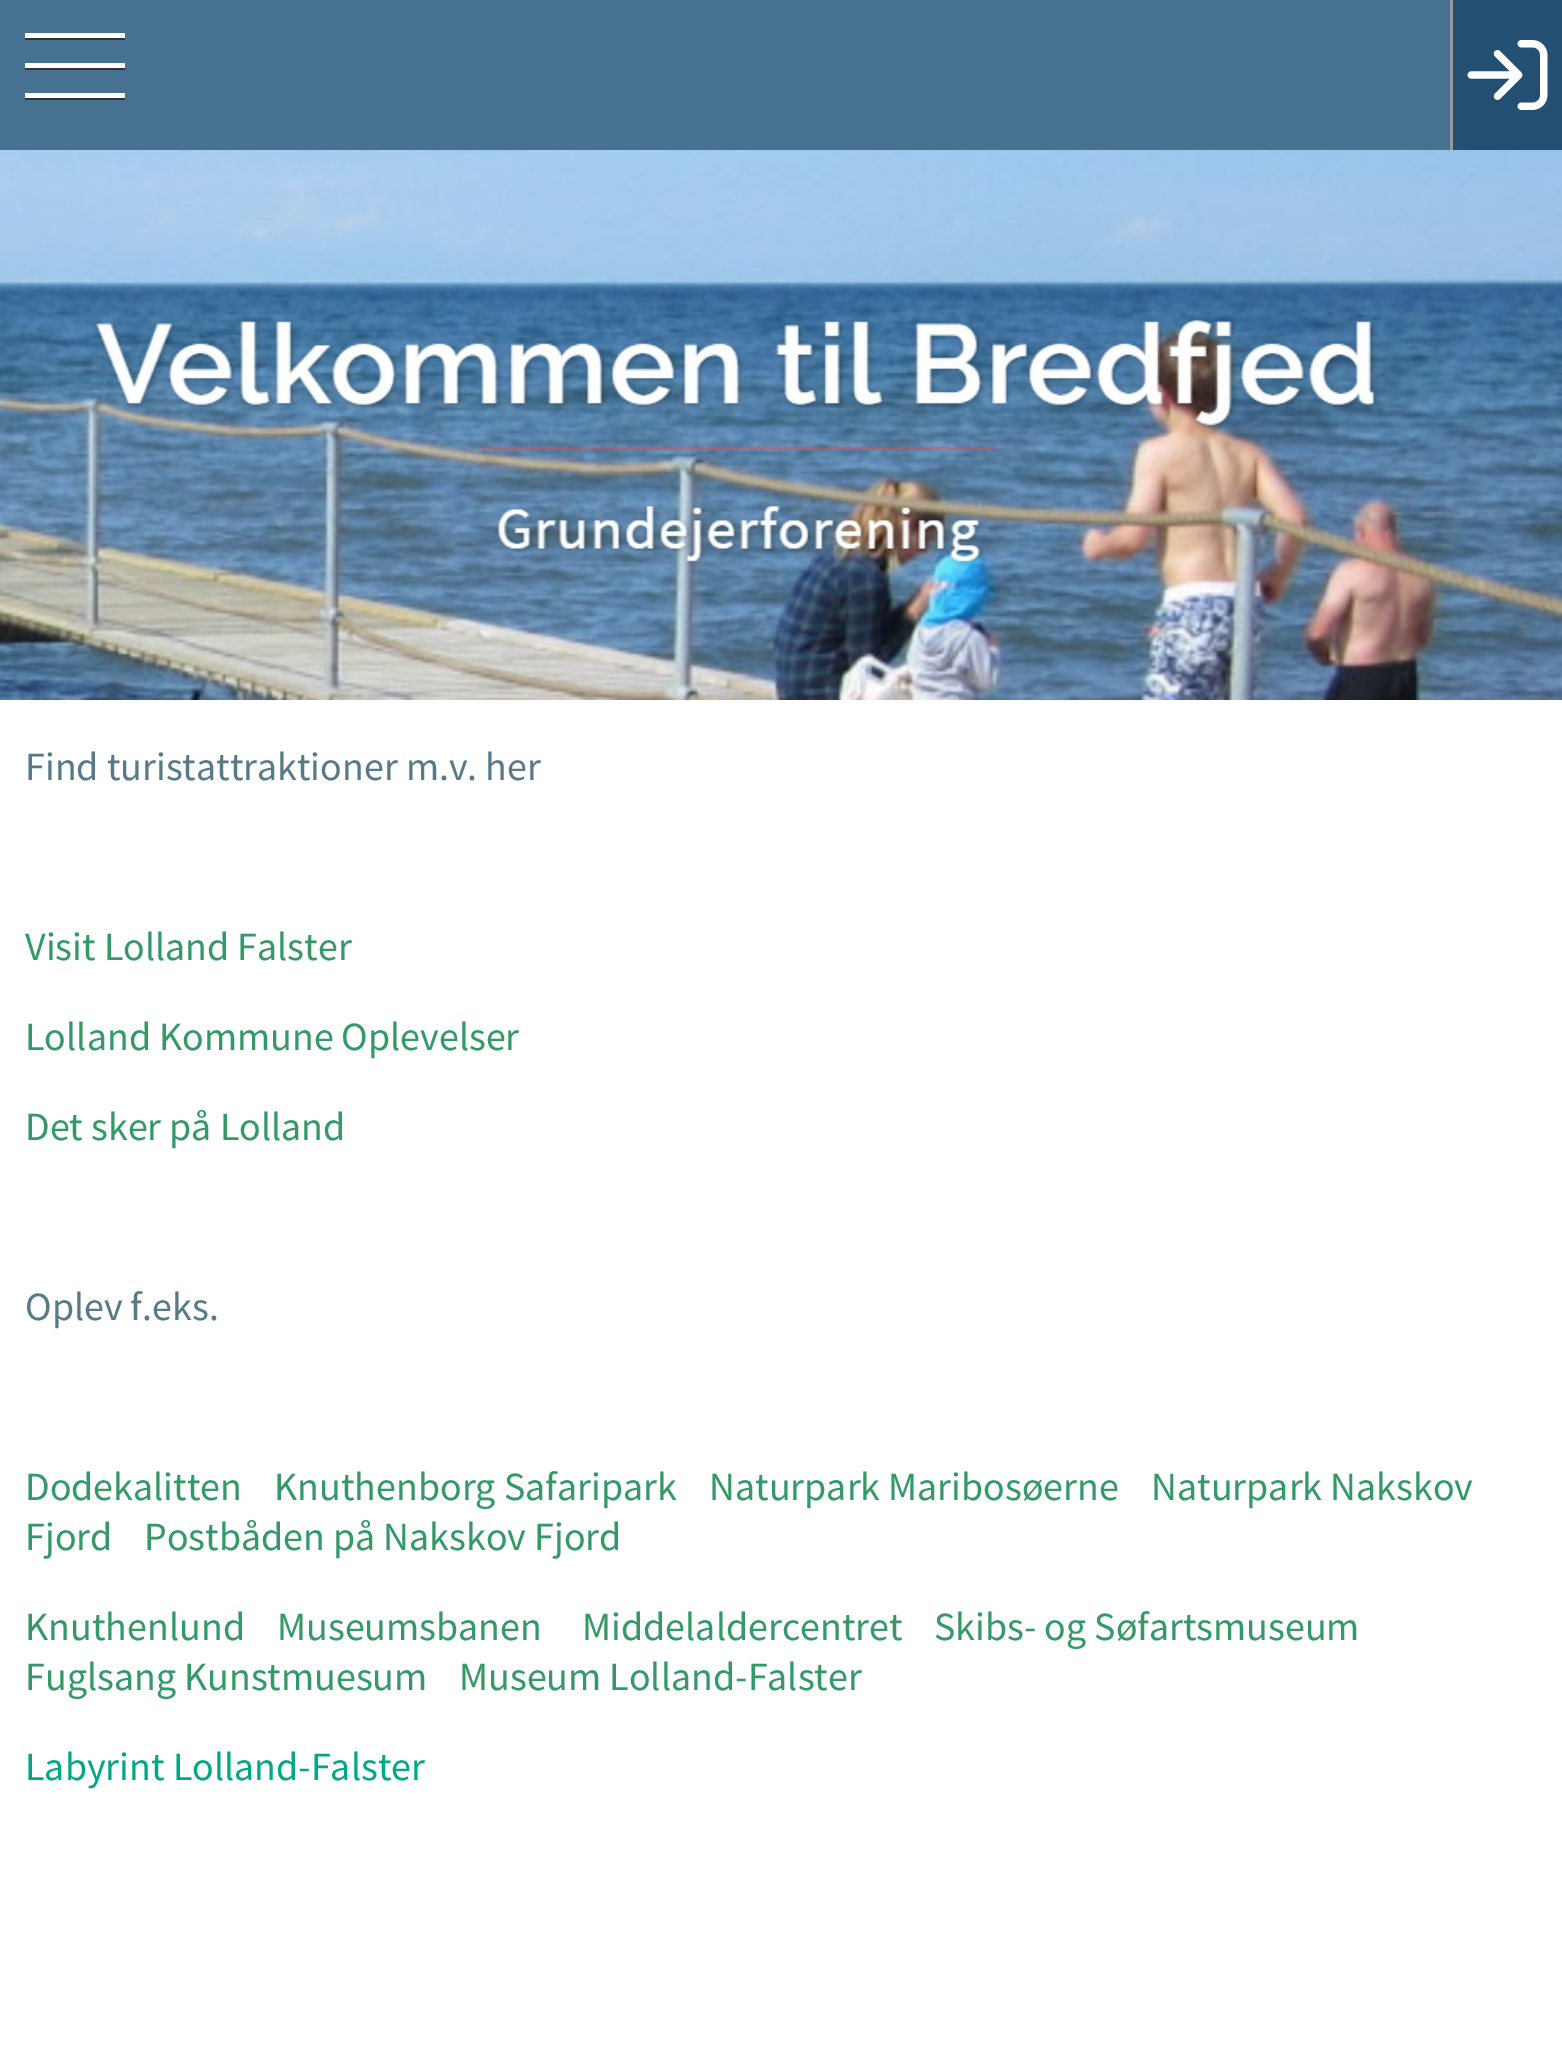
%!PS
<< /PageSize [1562 2069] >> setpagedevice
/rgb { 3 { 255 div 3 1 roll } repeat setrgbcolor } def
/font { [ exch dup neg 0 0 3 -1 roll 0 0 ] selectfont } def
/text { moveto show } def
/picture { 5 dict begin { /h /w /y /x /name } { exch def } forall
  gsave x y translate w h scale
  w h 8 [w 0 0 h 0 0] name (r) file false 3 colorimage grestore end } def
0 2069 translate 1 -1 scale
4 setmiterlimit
255 255 255 rgb
0 0 1562 2069 rectfill
71 113 144 rgb
0 0 1450 150 rectfill
51 51 51 rgb
25 38 100 2 rectfill
255 255 255 rgb
25 33 100 5 rectfill
51 51 51 rgb
25 68 100 2 rectfill
255 255 255 rgb
25 63 100 5 rectfill
51 51 51 rgb
25 98 100 2 rectfill
255 255 255 rgb
25 93 100 5 rectfill
34 79 114 rgb
1453 0 109 150 rectfill
153 153 153 rgb
1450 0 3 150 rectfill
(img_01.rgb) 1467 40 81 70 picture
(img_02.rgb) 0 150 1562 550 picture
/SourceSansPro-Regular 40 font
88 121 134 rgb
(Find turistattraktioner m.v. her) 25 780 text
51 153 102 rgb
(Visit Lolland Falster) 25 960 text
(Lolland Kommune Oplevelser) 25 1050 text
(Det sker på Lolland) 25 1140 text
88 121 134 rgb
(Oplev f.eks.) 25 1320 text
51 153 102 rgb
(Dodekalitten) 25 1500 text
(Knuthenborg Safaripark) 274 1500 text
(Naturpark Maribosøerne) 709 1500 text
(Naturpark Nakskov) 1151 1500 text
(Fjord) 25 1550 text
(Postbåden på Nakskov Fjord) 144 1550 text
(Knuthenlund) 25 1640 text
(Museumsbanen) 277 1640 text
(Middelaldercentret) 582 1640 text
(Skibs- og Søfartsmuseum) 934 1640 text
(Fuglsang Kunstmuesum) 25 1690 text
(Museum Lolland-Falster) 459 1690 text
0 168 133 rgb
(Labyrint Lolland-Falster) 25 1780 text
showpage
